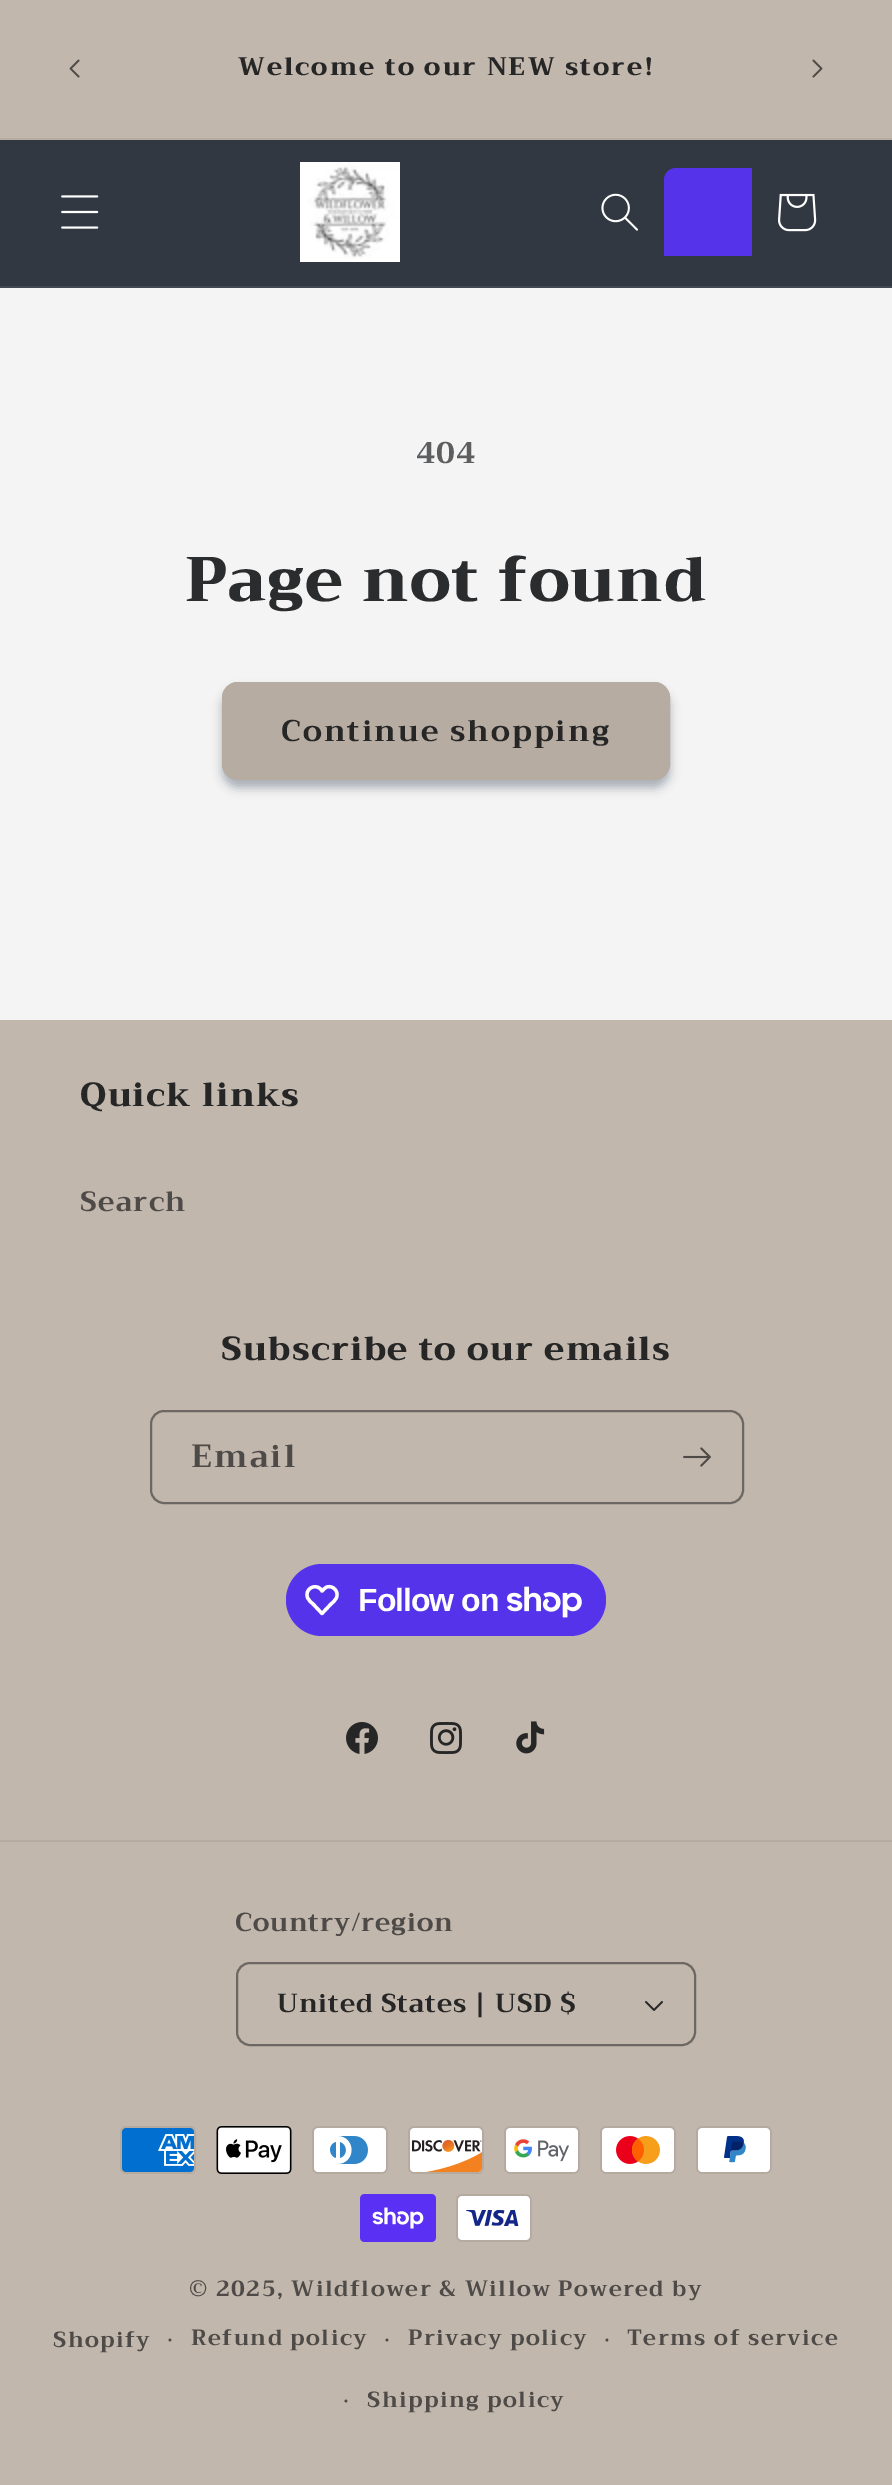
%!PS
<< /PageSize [892 2485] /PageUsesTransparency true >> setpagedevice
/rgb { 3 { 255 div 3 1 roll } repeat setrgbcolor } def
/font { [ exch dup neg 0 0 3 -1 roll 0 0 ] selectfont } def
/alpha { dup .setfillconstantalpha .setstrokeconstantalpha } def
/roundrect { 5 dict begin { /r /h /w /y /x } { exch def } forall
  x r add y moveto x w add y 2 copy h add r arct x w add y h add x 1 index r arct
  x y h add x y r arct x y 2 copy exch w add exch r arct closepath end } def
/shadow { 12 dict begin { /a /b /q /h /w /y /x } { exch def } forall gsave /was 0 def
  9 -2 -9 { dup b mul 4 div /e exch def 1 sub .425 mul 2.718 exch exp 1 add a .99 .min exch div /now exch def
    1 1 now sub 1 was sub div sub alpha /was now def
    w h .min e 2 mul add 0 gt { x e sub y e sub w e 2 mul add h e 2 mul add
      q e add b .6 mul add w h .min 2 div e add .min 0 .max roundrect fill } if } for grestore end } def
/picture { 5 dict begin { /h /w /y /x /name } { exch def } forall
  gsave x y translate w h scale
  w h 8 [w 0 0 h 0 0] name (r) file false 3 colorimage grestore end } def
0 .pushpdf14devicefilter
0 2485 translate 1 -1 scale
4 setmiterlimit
244 244 244 rgb
0 0 892 2485 rectfill
194 183 172 rgb
0 0 892 138 rectfill
182 171 161 rgb
0 138 892 2 rectfill
(img_01.rgb) 69 59 11 19 picture
(img_02.rgb) 812 59 11 19 picture
50 56 65 rgb
0 140 892 146 rectfill
66 72 80 rgb
0 286 892 2 rectfill
(img_03.rgb) 61 195 38 34 picture
(img_04.rgb) 300 162 100 100 picture
(img_05.rgb) 601 193 37 38 picture
84 51 235 rgb
676 168 moveto 76 0 rlineto 0 88 rlineto -88 0 rlineto 0 -76 rlineto 0 -6.5 5.5 -12 12 -12 rcurveto closepath fill
(img_06.rgb) 778 193 39 39 picture
0 17 40 rgb
222 690 448 98 16 5 0.3 shadow
183 172 162 rgb
222 682 448 98 16 roundrect fill
4 setlinewidth
224 684 444 94 14 roundrect stroke
194 183 172 rgb
0 1020 892 1465 rectfill
108 103 98 rgb
2 setlinewidth
151 1411 592 92 13 roundrect stroke
(img_07.rgb) 683 1447 28 20 picture
84 51 235 rgb
286 1564 320 72 36 roundrect fill
255 255 255 rgb
3.3 setlinewidth
1 setlinejoin
320.5 1589 moveto 1.5 2 rlineto 1.5 -1.5 3 -3.5 5 -4 rcurveto 6 -2 12 4.5 9.5 10.5 rcurveto -1 3 -4 5 -6 7 rcurveto -8.5 9 rlineto -8.5 -9 rlineto -2 -2 -5 -4 -6 -7 rcurveto -3 -8 7 -14.5 13 -8.5 rcurveto closepath stroke
(img_08.rgb) 507 1586 75 32 picture
(img_09.rgb) 346 1722 32 32 picture
(img_10.rgb) 430 1722 32 32 picture
(img_11.rgb) 516 1721 29 33 picture
182 171 161 rgb
0 1840 892 2 rectfill
(img_12.rgb) 645 2001 18 10 picture
108 103 98 rgb
2 setlinewidth
0 setlinejoin
237 1963 458 82 13 roundrect stroke
(img_13.rgb) 120 2126 76 48 picture
(img_14.rgb) 216 2126 76 48 picture
(img_15.rgb) 312 2126 76 48 picture
(img_16.rgb) 408 2126 76 48 picture
(img_17.rgb) 504 2126 76 48 picture
(img_18.rgb) 600 2126 76 48 picture
(img_19.rgb) 696 2126 76 48 picture
(img_20.rgb) 360 2194 76 48 picture
(img_21.rgb) 456 2194 76 48 picture
/Trirong-ExtraBold 25.25 font
38 38 38 rgb
238 75 moveto 2 0 (Welcome to our NEW store!) ashow
/Trirong-Bold 30 font
93 94 95 rgb
416 463 moveto 1.25 0 (404) ashow
/Trirong-ExtraBold 63 font
43 44 45 rgb
185 601 moveto 1.25 0 (Page not found) ashow
/Trirong-Bold 30 font
38 38 38 rgb
281 741 moveto 2 0 (Continue shopping) ashow
/Trirong-ExtraBold 33.6 font
80 1106 moveto 1.25 0 (Quick links) ashow
/Trirong-Bold 28 font
77 74 72 rgb
80 1211 moveto 1.25 0 (Search) ashow
/Trirong-ExtraBold 33.6 font
38 38 38 rgb
221 1360 moveto 1.25 0 (Subscribe to our emails) ashow
/Trirong-Bold 32 font
77 74 72 rgb
191 1467 moveto 2 0 (Email) ashow
/LiberationSans-Bold 32 font
255 255 255 rgb
358 1611 moveto -1 0 (Follow on) ashow
/Trirong-Bold 26 font
77 74 72 rgb
235 1931 moveto 0.8 0 (Country/region) ashow
38 38 38 rgb
277 2012 moveto 0.8 0 (United States | USD $) ashow
/Trirong-Bold 22 font
77 74 72 rgb
189 2296 moveto 1.4 0 (© 2025, Wildflower & Willow) ashow
558 2296 moveto 1.4 0 (Powered by) ashow
53 2347 moveto 1.4 0 (Shopify) ashow
/Trirong-Bold 20 font
167 2347 moveto 1.4 0 (·) ashow
/Trirong-Bold 22 font
191 2345 moveto 1.4 0 (Refund policy) ashow
/Trirong-Bold 20 font
384 2347 moveto 1.4 0 (·) ashow
/Trirong-Bold 22 font
408 2345 moveto 1.4 0 (Privacy policy) ashow
/Trirong-Bold 20 font
604 2347 moveto 1.4 0 (·) ashow
/Trirong-Bold 22 font
627 2345 moveto 1.4 0 (Terms of service) ashow
/Trirong-Bold 20 font
343 2408 moveto 1.4 0 (·) ashow
/Trirong-Bold 22 font
367 2407 moveto 1.4 0 (Shipping policy) ashow
.poppdf14devicefilter showpage
